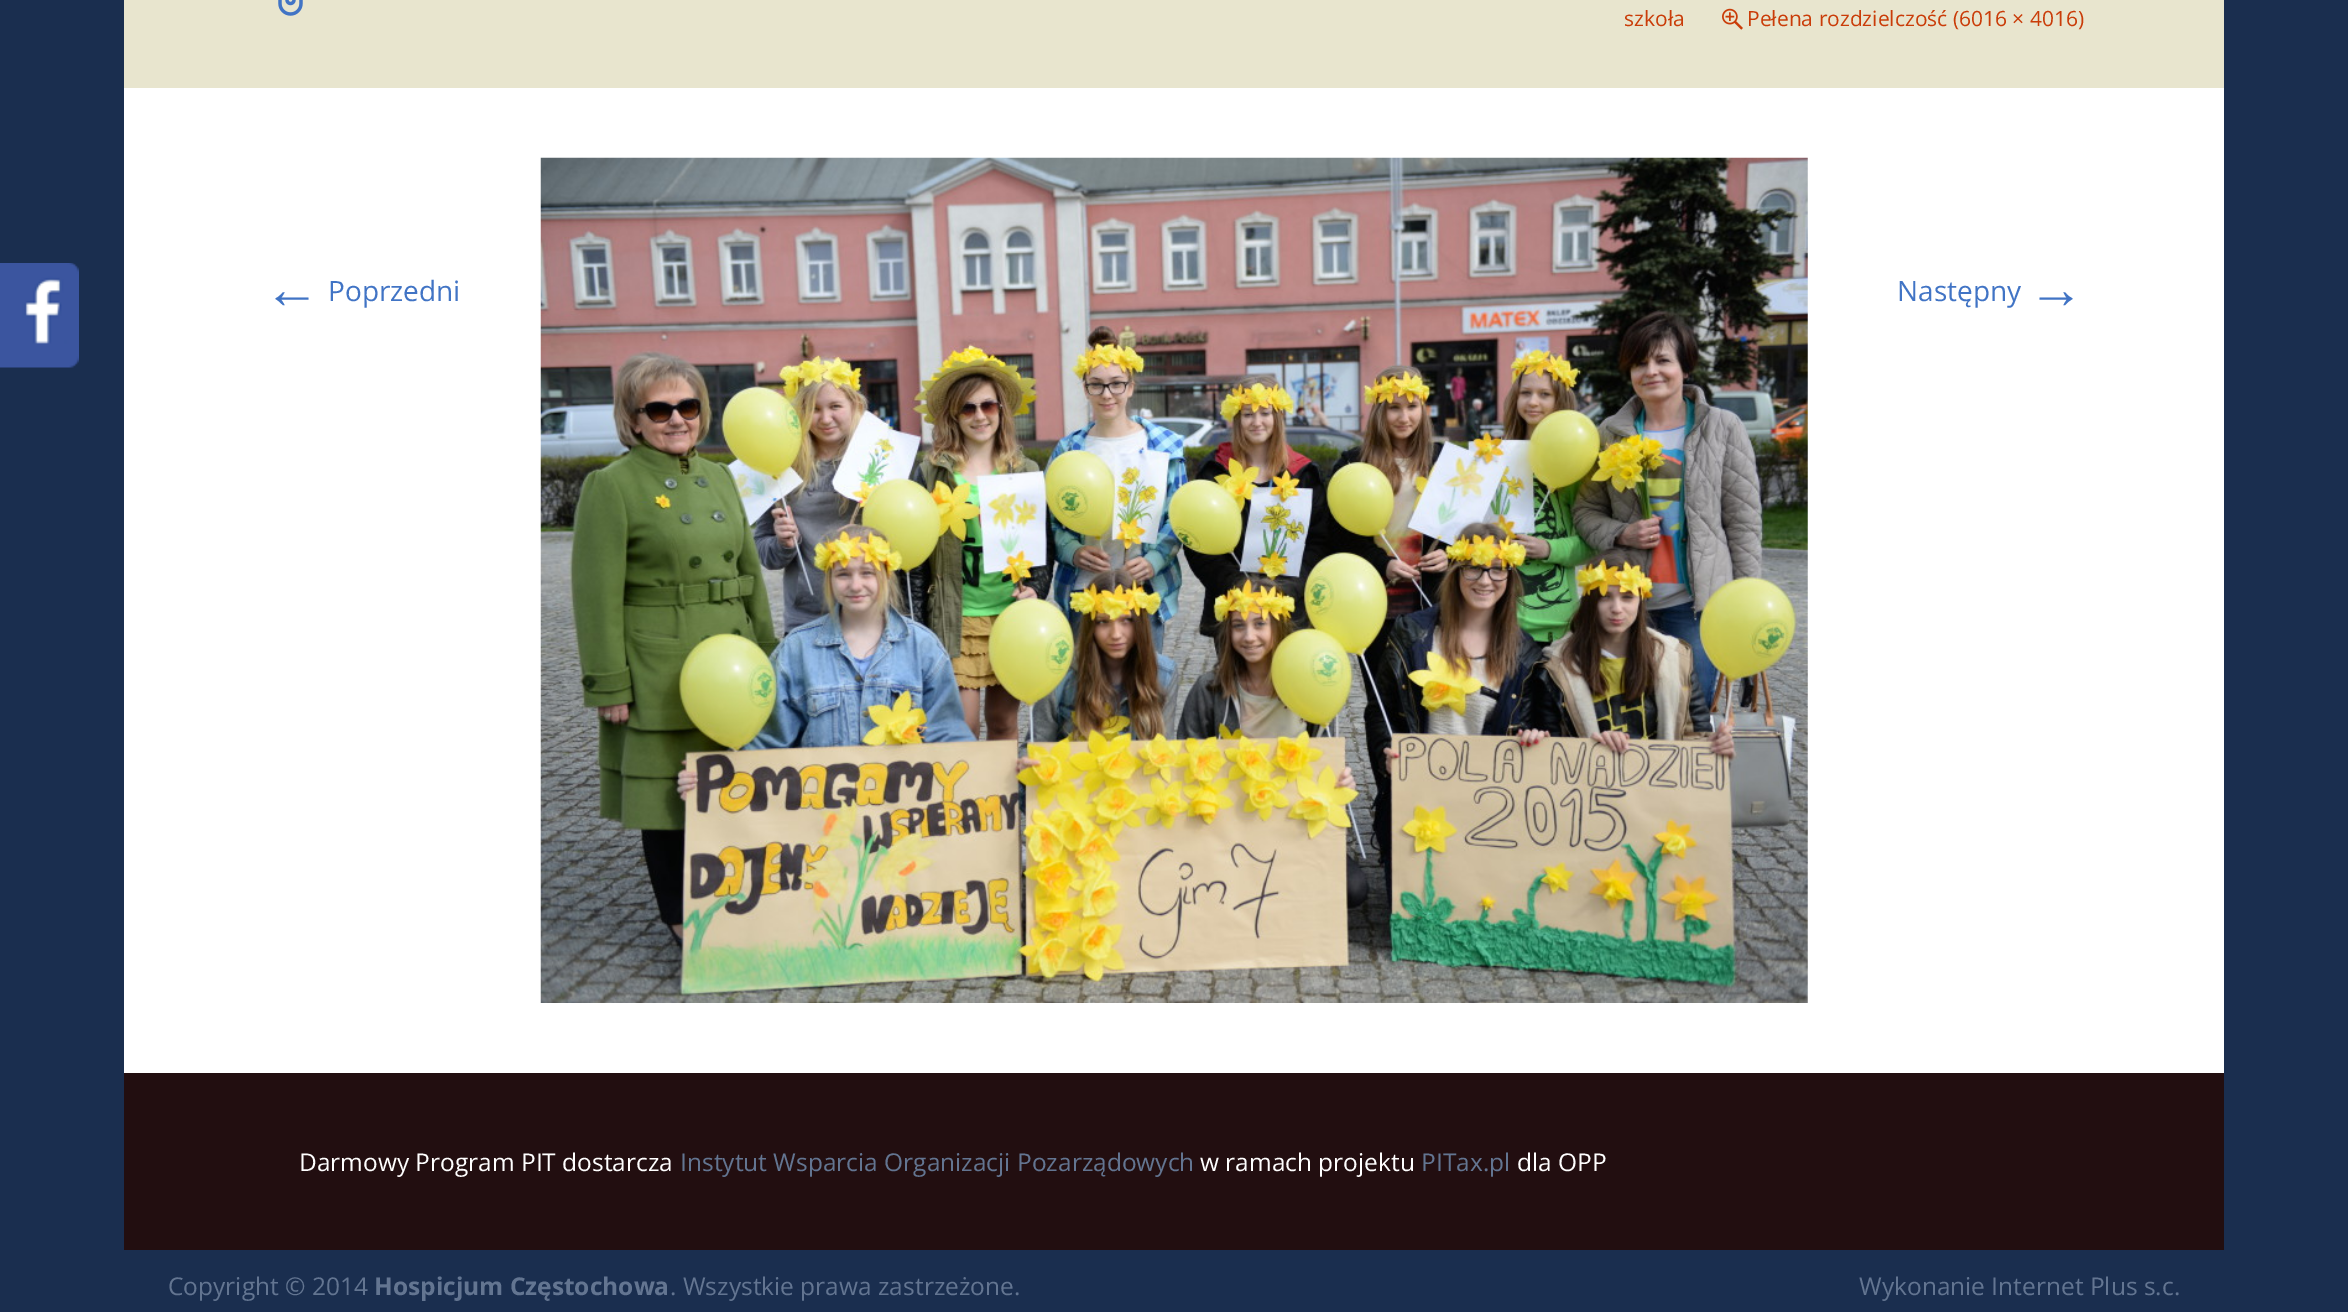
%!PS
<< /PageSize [2348 1312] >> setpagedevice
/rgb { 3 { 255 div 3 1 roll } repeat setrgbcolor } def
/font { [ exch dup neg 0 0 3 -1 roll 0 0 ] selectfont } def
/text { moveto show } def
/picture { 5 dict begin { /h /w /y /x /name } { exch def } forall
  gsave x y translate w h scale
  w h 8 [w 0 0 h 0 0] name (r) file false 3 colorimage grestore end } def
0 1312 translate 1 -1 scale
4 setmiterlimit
26 46 79 rgb
0 0 2348 1312 rectfill
(img_01.rgb) 0 263 79 105 picture
232 229 206 rgb
124 0 2100 88 rectfill
(img_02.rgb) 278 0 25 16 picture
(img_03.rgb) 1722 8 21 22 picture
255 255 255 rgb
124 88 2100 985 rectfill
(img_04.rgb) 540 157 1268 846 picture
34 14 16 rgb
124 1073 2100 177 rectfill
/OpenSans-Regular 21 font
202 60 8 rgb
(szkoła) 1624 26 text
(Pełena rozdzielczość \(6016 × 4016\)) 1747 26 text
/LiberationSans-Regular 56 font
65 116 197 rgb
(←) 264 308 text
/OpenSans-Regular 28 font
(Poprzedni) 328 301 text
(Następny) 1897 301 text
/LiberationSans-Regular 56 font
(→) 2028 308 text
/OpenSans-Regular 24.5 font
255 255 255 rgb
(Darmowy Program PIT dostarcza) 299 1171 text
99 117 145 rgb
(Instytut Wsparcia Organizacji Pozarządowych) 680 1171 text
255 255 255 rgb
(w ramach projektu) 1200 1171 text
99 117 145 rgb
(PITax.pl) 1421 1171 text
255 255 255 rgb
(dla OPP) 1517 1171 text
99 117 145 rgb
(Copyright © 2014) 168 1295 text
/OpenSans-Bold 24.5 font
(Hospicjum Częstochowa) 374 1295 text
/OpenSans-Regular 24.5 font
(. Wszystkie prawa zastrzeżone.) 670 1295 text
(Wykonanie Internet Plus s.c.) 1859 1295 text
showpage
